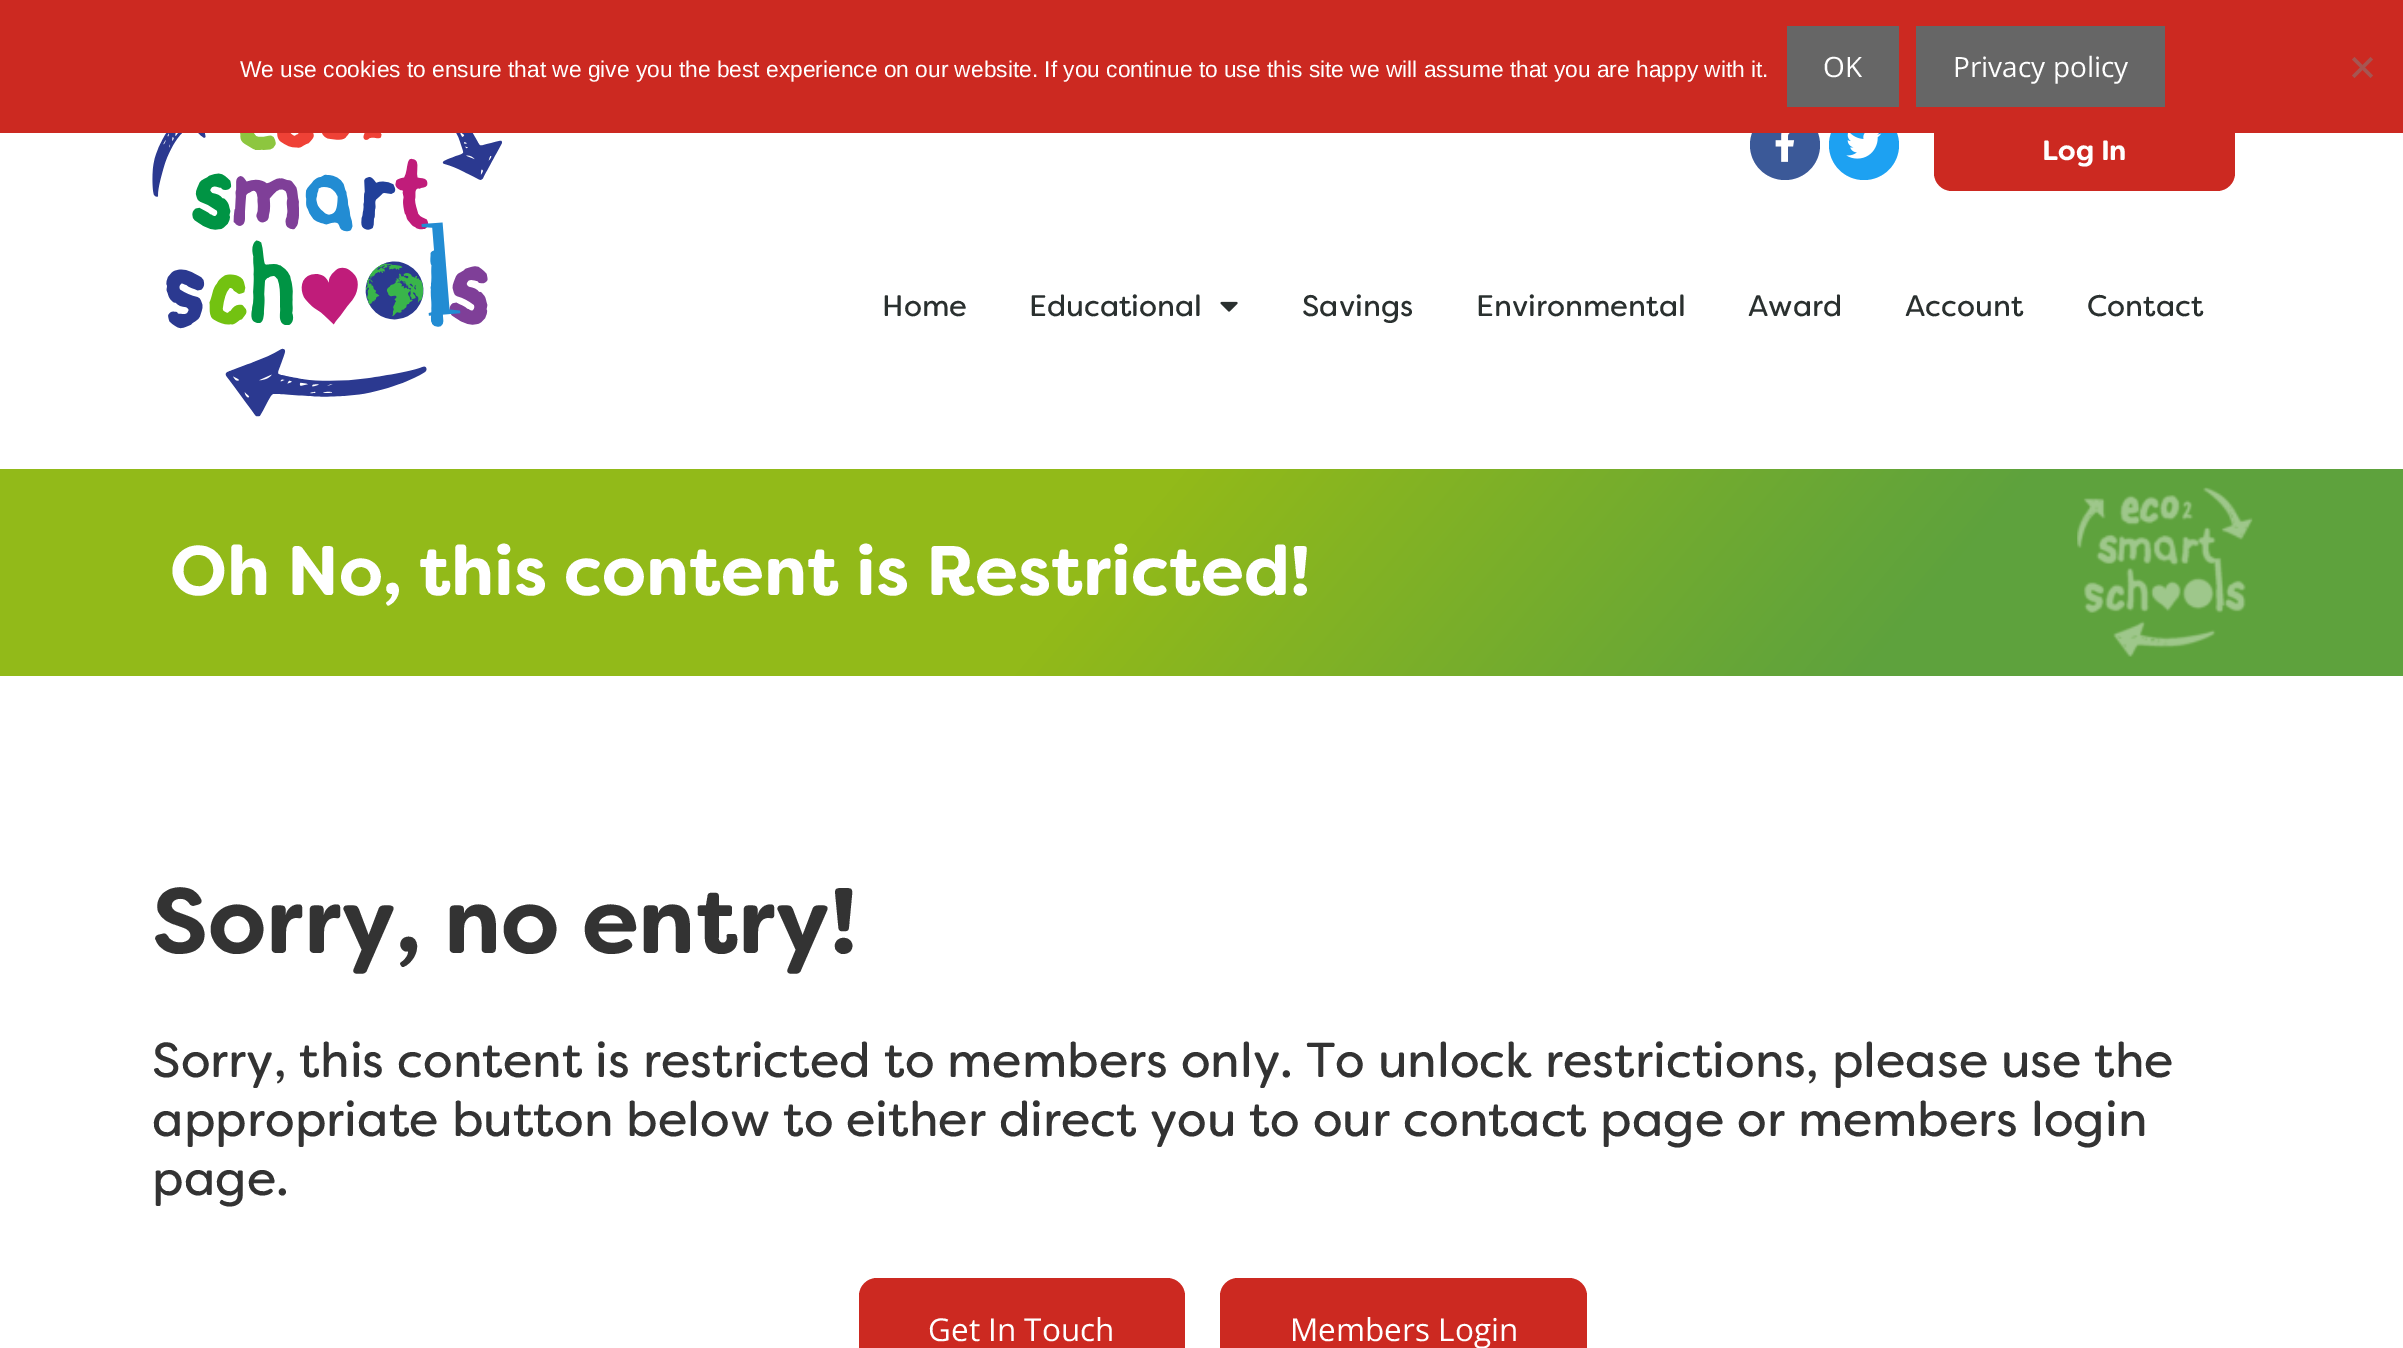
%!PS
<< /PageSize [2403 1348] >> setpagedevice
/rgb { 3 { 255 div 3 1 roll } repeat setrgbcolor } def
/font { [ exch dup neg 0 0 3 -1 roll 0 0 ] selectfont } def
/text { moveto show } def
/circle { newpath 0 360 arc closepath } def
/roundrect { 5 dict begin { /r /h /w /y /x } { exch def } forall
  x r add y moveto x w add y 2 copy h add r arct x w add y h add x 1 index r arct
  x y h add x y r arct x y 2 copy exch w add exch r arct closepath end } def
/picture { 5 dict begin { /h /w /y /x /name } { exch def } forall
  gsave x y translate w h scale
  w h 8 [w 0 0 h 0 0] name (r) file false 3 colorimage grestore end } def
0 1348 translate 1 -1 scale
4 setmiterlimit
255 255 255 rgb
0 0 2403 1348 rectfill
59 89 152 rgb
1785 145 35 circle fill
29 161 242 rgb
1864 145 35 circle fill
204 41 33 rgb
1934 110 301 81 18 roundrect fill
0 0 2403 133 rectfill
102 102 102 rgb
1787 26 112 81 rectfill
1916 26 249 81 rectfill
166 85 81 rgb
2370.5 57 moveto 2.5 2.5 rlineto -18.5 18.5 rlineto -2.5 -2.5 rlineto closepath fill
2352 59.5 moveto 2.5 -2.5 rlineto 18.5 18.5 rlineto -2.5 2.5 rlineto closepath fill
(img_01.rgb) 152 133 350 284 picture
(img_02.rgb) 1775 133 20 29 picture
(img_03.rgb) 1846 133 36 26 picture
(img_04.rgb) 1220 301 18 11 picture
gsave 0 469 moveto 2403 0 rlineto 0 207 rlineto -2403 0 rlineto closepath clip newpath
<< /ShadingType 2 /ColorSpace /DeviceRGB /Coords [446 -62 1959 1207] /Extend [true true] /Function << /FunctionType 3 /Domain [0 1] /Functions [<< /FunctionType 2 /Domain [0 1] /C0 [0.573 0.729 0.098] /C1 [0.573 0.729 0.098] /N 1 >> << /FunctionType 2 /Domain [0 1] /C0 [0.573 0.729 0.098] /C1 [0.369 0.635 0.239] /N 1 >> << /FunctionType 2 /Domain [0 1] /C0 [0.369 0.635 0.239] /C1 [0.369 0.635 0.239] /N 1 >>] /Bounds [0.46 0.79] /Encode [0 1 0 1 0 1] >> >> shfill grestore
(img_05.rgb) 2077 487 176 170 picture
204 41 33 rgb
859 1278 326 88 18 roundrect fill
1220 1278 367 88 18 roundrect fill
/LiberationSans-Regular 22.75 font
255 255 255 rgb
(We use cookies to ensure that we give you the best experience on our website. If you continue to use this site we will assume that you are happy with it.) 240 77 text
/OpenSans-Regular 28 font
(OK) 1823 77 text
(Privacy policy) 1953 77 text
/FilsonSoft-Bold 28 font
(Log In) 2042 160 text
/FilsonSoft-Regular 29.75 font
42 48 47 rgb
(Home) 882 316 text
(Educational) 1029 316 text
(Savings) 1302 316 text
(Environmental) 1476 316 text
(Award) 1748 316 text
(Account) 1905 316 text
(Contact) 2087 316 text
/FilsonSoft-Bold 70 font
255 255 255 rgb
(Oh No, this content is Restricted!) 170 595 text
/FilsonSoft-Bold 92.75 font
51 51 51 rgb
(Sorry, no entry!) 152 953 text
/FilsonSoft-Regular 49 font
(Sorry, this content is restricted to members only. To unlock restrictions, please use the) 152 1077 text
(appropriate button below to either direct you to our contact page or members login) 152 1136 text
(page.) 152 1195 text
/OpenSans-Regular 31.5 font
255 255 255 rgb
(Get In Touch) 928 1341 text
(Members Login) 1290 1341 text
showpage
